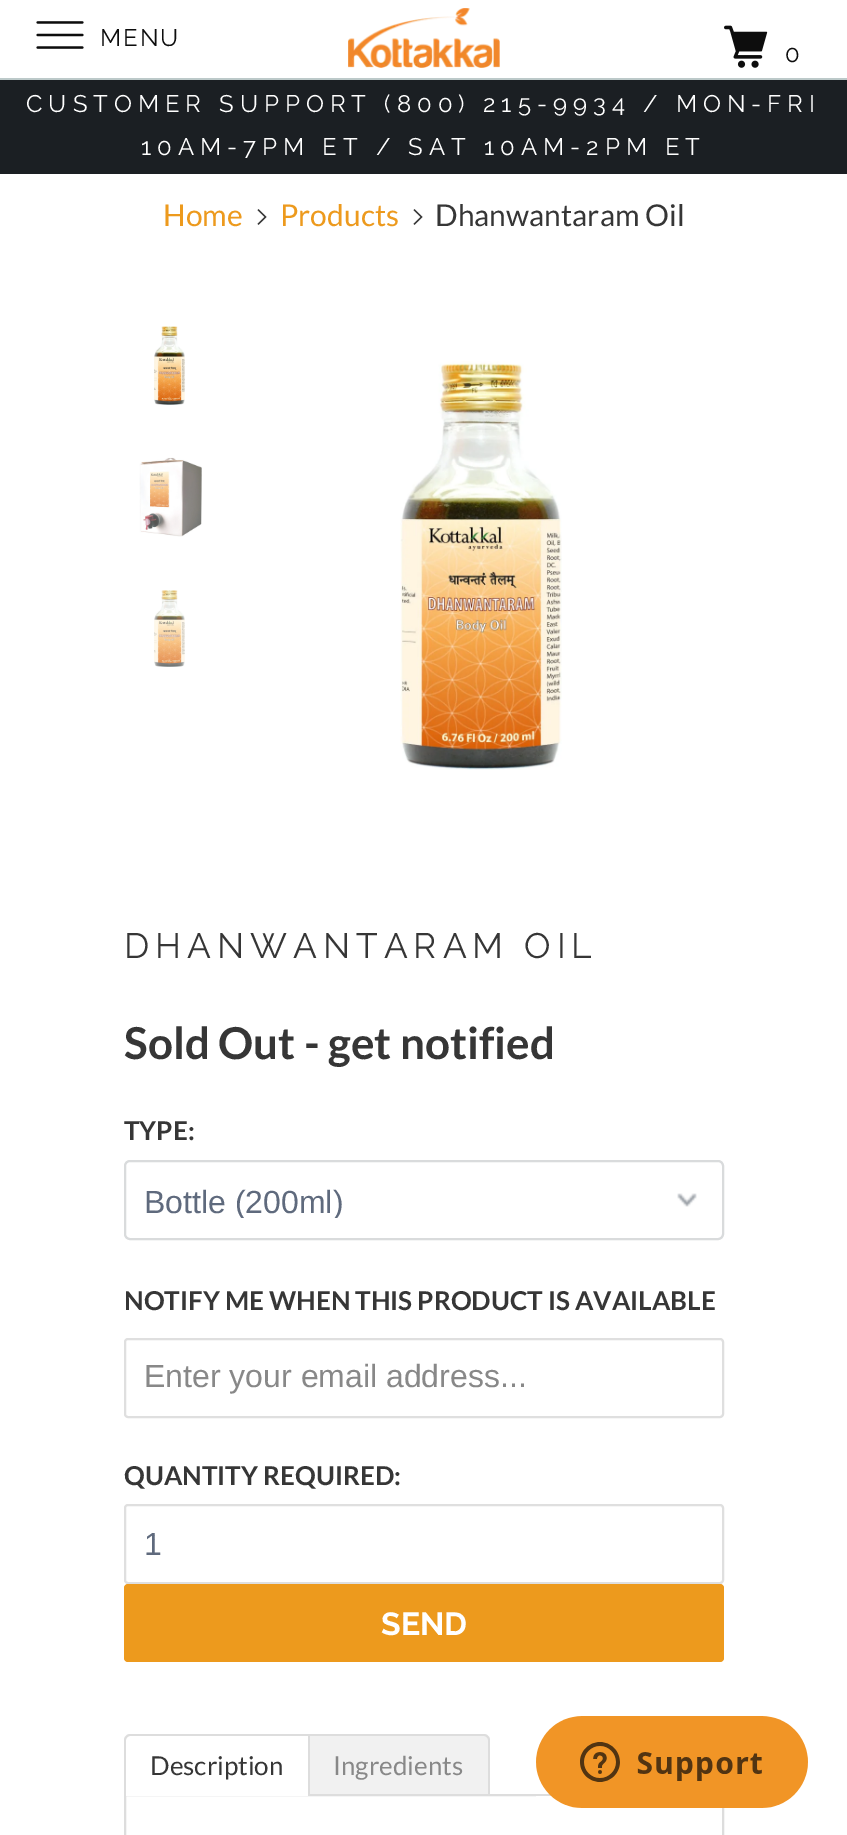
%!PS
<< /PageSize [847 1835] >> setpagedevice
/rgb { 3 { 255 div 3 1 roll } repeat setrgbcolor } def
/font { [ exch dup neg 0 0 3 -1 roll 0 0 ] selectfont } def
/text { moveto show } def
/roundrect { 5 dict begin { /r /h /w /y /x } { exch def } forall
  x r add y moveto x w add y 2 copy h add r arct x w add y h add x 1 index r arct
  x y h add x y r arct x y 2 copy exch w add exch r arct closepath end } def
/picture { 5 dict begin { /h /w /y /x /name } { exch def } forall
  gsave x y translate w h scale
  w h 8 [w 0 0 h 0 0] name (r) file false 3 colorimage grestore end } def
0 1835 translate 1 -1 scale
4 setmiterlimit
255 255 255 rgb
0 0 847 1835 rectfill
188 201 201 rgb
0 78 847 2 rectfill
(img_01.rgb) 36 21 48 28 picture
(img_02.rgb) 348 8 152 60 picture
(img_03.rgb) 724 25 44 43 picture
27 31 35 rgb
0 80 847 94 rectfill
(img_04.rgb) 257 209 10 16 picture
(img_04.rgb) 413 209 10 16 picture
(img_05.rgb) 154 326 31 79 picture
(img_06.rgb) 139 457 63 80 picture
(img_07.rgb) 154 590 31 77 picture
(img_08.rgb) 400 361 162 409 picture
(img_09.rgb) 677 1193 20 14 picture
217 219 220 rgb
2 setlinewidth
125 1161 598 78 5 roundrect stroke
223 223 223 rgb
125 1339 598 78 3 roundrect stroke
125 1505 598 78 3 roundrect stroke
237 154 29 rgb
124 1584 600 78 4 roundrect fill
221 221 221 rgb
125 1795 598 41 rectstroke
255 255 255 rgb
130 1736 moveto 178 0 rlineto 0 60 rlineto -182 0 rlineto 0 -56 rlineto 0 -2 2 -4 4 -4 rcurveto closepath fill
221 221 221 rgb
130 1734 moveto 180 0 rlineto 0 62 rlineto -186 0 rlineto 0 -56 rlineto 0 -3 3 -6 6 -6 rcurveto closepath 130 1736 moveto 178 0 rlineto 0 60 rlineto -182 0 rlineto 0 -56 rlineto 0 -2 2 -4 4 -4 rcurveto closepath eofill
241 241 241 rgb
310 1736 moveto 174 0 rlineto 2 0 4 2 4 4 rcurveto 0 54 rlineto -178 0 rlineto closepath fill
221 221 221 rgb
310 1734 moveto 174 0 rlineto 3 0 6 3 6 6 rcurveto 0 56 rlineto -180 0 rlineto closepath 310 1736 moveto 174 0 rlineto 2 0 4 2 4 4 rcurveto 0 54 rlineto -178 0 rlineto closepath eofill
(img_10.rgb) 536 1716 272 92 picture
/Raleway-Regular 24 font
13 13 13 rgb
100 46 moveto 2 0 (MENU) ashow
785 62 moveto 2 0 (0) ashow
255 255 255 rgb
26 112 moveto 6 0 (CUSTOMER SUPPORT \(800\) 215-9934 / MON-FRI) ashow
141 155 moveto 6 0 (10AM-7PM ET / SAT 10AM-2PM ET) ashow
/Lato-Regular 30 font
237 154 29 rgb
(Home) 163 226 text
(Products) 280 226 text
54 54 54 rgb
(Dhanwantaram Oil) 435 226 text
/Raleway-Regular 35.25 font
124 958 moveto 6 0 (DHANWANTARAM OIL) ashow
/Lato-Bold 44 font
(Sold Out - get notified) 124 1059 text
/Lato-Bold 26 font
(TYPE:) 124 1140 text
gsave
144 1184 560 34 rectclip
/LiberationSans-Regular 32 font
95 106 125 rgb
(Bottle \(200ml\)) 144 1213 text
grestore
(NOTIFY ME WHEN THIS PRODUCT IS AVAILABLE) 124 1310 text
/LiberationSans-Regular 32 font
136 136 136 rgb
(Enter your email address...) 144 1387 text
/Lato-Bold 26 font
54 54 54 rgb
(QUANTITY REQUIRED:) 124 1485 text
/LiberationSans-Regular 32 font
95 106 125 rgb
(1) 144 1555 text
/Raleway-Bold 32 font
255 255 255 rgb
(SEND) 381 1635 text
/Lato-Regular 26 font
54 54 54 rgb
(Description) 150 1775 text
136 136 136 rgb
(Ingredients) 333 1775 text
showpage
